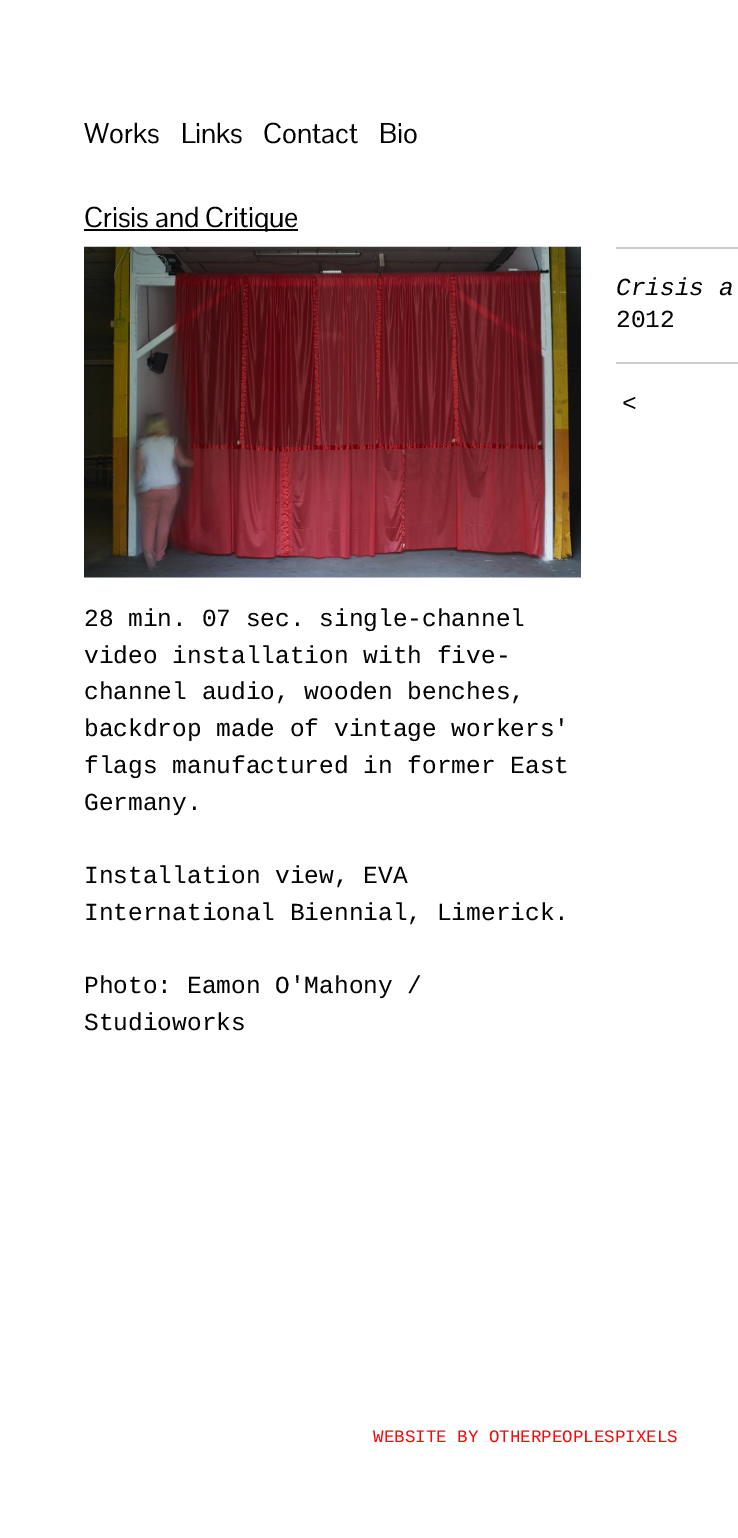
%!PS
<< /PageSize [738 1538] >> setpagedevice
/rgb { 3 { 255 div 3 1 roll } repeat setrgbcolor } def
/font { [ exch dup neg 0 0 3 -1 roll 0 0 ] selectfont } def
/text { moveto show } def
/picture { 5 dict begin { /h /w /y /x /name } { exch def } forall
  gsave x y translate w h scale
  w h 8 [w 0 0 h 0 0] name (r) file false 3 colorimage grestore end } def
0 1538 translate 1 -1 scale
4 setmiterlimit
255 255 255 rgb
0 0 738 1538 rectfill
0 0 0 rgb
84 229 214 2 rectfill
(img_01.rgb) 84 246 497 332 picture
204 204 204 rgb
616 247 122 2 rectfill
616 362 122 2 rectfill
/PontanoSans-Regular 28 font
0 0 0 rgb
(Works) 84 143 text
(Links) 181 143 text
(Contact) 263 143 text
(Bio) 379 143 text
(Crisis and Critique) 84 227 text
/LiberationMono-Italic 24.5 font
(Crisis a) 616 295 text
/LiberationMono-Regular 24.5 font
(2012) 616 327 text
/LiberationMono-Italic 24.5 font
622 411 moveto 2 0 (<) ashow
/LiberationMono-Regular 24.5 font
(28 min. 07 sec. single-channel) 84 626 text
(video installation with five-) 84 663 text
(channel audio, wooden benches,) 84 699 text
(backdrop made of vintage workers') 84 736 text
(flags manufactured in former East) 84 773 text
(Germany.) 84 810 text
(Installation view, EVA) 84 883 text
(International Biennial, Limerick.) 84 920 text
(Photo: Eamon O'Mahony /) 84 993 text
(Studioworks) 84 1030 text
/LiberationMono-Regular 17.5 font
250 5 8 rgb
(WEBSITE BY OTHERPEOPLESPIXELS) 373 1442 text
showpage
